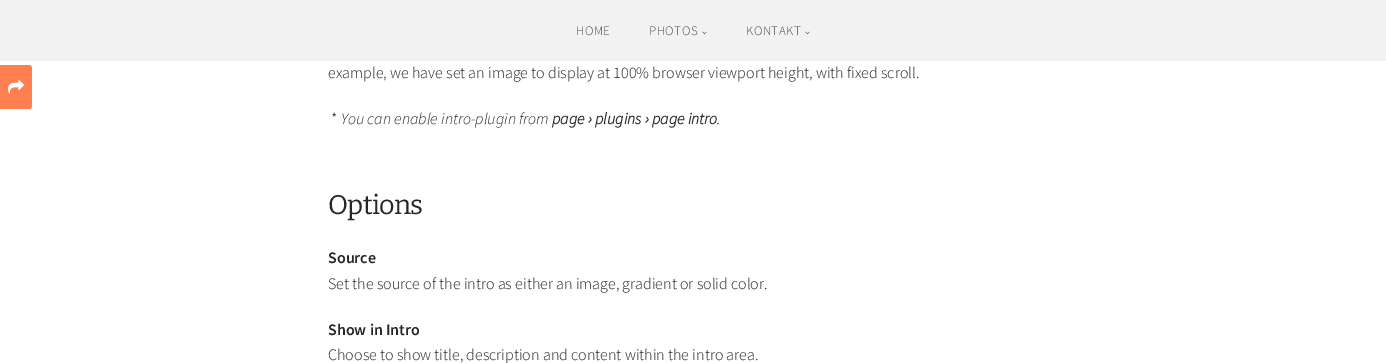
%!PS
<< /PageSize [1386 363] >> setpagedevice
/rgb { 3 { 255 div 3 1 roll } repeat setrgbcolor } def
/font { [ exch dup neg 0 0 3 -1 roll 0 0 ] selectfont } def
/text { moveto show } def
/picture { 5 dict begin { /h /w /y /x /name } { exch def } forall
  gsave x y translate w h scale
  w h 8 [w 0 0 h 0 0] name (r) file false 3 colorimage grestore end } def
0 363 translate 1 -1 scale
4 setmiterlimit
255 255 255 rgb
0 0 1386 363 rectfill
255 127 80 rgb
-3 65 moveto 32 0 rlineto 1.5 0 3 1.5 3 3 rcurveto 0 38 rlineto 0 1.5 -1.5 3 -3 3 rcurveto -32 0 rlineto closepath fill
(img_01.rgb) 8 79 16 16 picture
242 242 242 rgb
0 0 1386 61 rectfill
(img_02.rgb) 702 31 5 4 picture
(img_02.rgb) 805 31 5 4 picture
/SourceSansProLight-Light 13 font
77 77 77 rgb
576 35 moveto 0.5 0 (HOME) ashow
649 35 moveto 0.5 0 (PHOTOS) ashow
746 35 moveto 0.5 0 (KONTAKT) ashow
/SourceSansProLight-Light 16 font
38 38 38 rgb
(example, we have set an image to display at 100% browser viewport height, with fixed scroll.) 328 78 text
(*) 331 124 text
/SourceSansProLight-LightItalic 16 font
(You can enable intro-plugin from) 341 124 text
/SourceSansProLight-BoldItalic 16 font
(page › plugins › page intro) 552 124 text
/SourceSansProLight-LightItalic 16 font
(.) 717 124 text
/Bitter-Thin 27 font
328 214 moveto -0.75 0 (Options) ashow
/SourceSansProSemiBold-SemiBold 16 font
(Source) 328 263 text
/SourceSansProLight-Light 16 font
(Set the source of the intro as either an image, gradient or solid color.) 328 289 text
/SourceSansProSemiBold-SemiBold 16 font
(Show in Intro) 328 335 text
/SourceSansProLight-Light 16 font
(Choose to show title, description and content within the intro area.) 328 360 text
showpage
